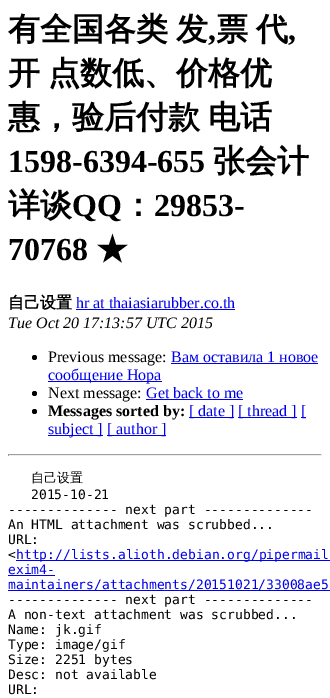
%!PS
<< /PageSize [330 698] >> setpagedevice
/rgb { 3 { 255 div 3 1 roll } repeat setrgbcolor } def
/font { [ exch dup neg 0 0 3 -1 roll 0 0 ] selectfont } def
/text { moveto show } def
/circle { newpath 0 360 arc closepath } def
0 698 translate 1 -1 scale
4 setmiterlimit
255 255 255 rgb
0 0 330 698 rectfill
0 0 238 rgb
76 309 159 1 rectfill
0 0 0 rgb
34.5 357.5 2.5 circle fill
0 0 238 rgb
171 363 147 1 rectfill
48 381 114 1 rectfill
0 0 0 rgb
34.5 393.5 2.5 circle fill
0 0 238 rgb
146 399 97 1 rectfill
0 0 0 rgb
34.5 411.5 2.5 circle fill
0 0 238 rgb
189 417 45 1 rectfill
238 417 59 1 rectfill
301 417 5 1 rectfill
48 435 55 1 rectfill
107 435 59 1 rectfill
159 159 159 rgb
8 454 314 1 rectfill
238 238 238 rgb
321 454 1 2 rectfill
8 455 314 1 rectfill
159 159 159 rgb
8 454 1 2 rectfill
0 0 238 rgb
16 560 314 1 rectfill
8 575 47 1 rectfill
8 590 322 1 rectfill
/WenQuanYiZenHei-Bold 32 font
0 0 0 rgb
8 40 moveto -2 0 32 (有全国各类 发) widthshow
/LiberationSerif-Bold 32 font
(,) 208 40 text
/WenQuanYiZenHei-Bold 32 font
216 40 moveto -2 0 32 (票 代) widthshow
/LiberationSerif-Bold 32 font
(,) 288 40 text
/WenQuanYiZenHei-Bold 32 font
8 84 moveto -2 0 32 (开 点数低、价格优) widthshow
(惠，验后付款) 8 128 text
(电话) 208 128 text
/LiberationSerif-Bold 32 font
(1598-6394-655) 8 172 text
/WenQuanYiZenHei-Bold 32 font
(张会计) 213 172 text
(详谈) 8 216 text
/LiberationSerif-Bold 32 font
(QQ) 72 216 text
/WenQuanYiZenHei-Bold 32 font
(：) 122 216 text
/LiberationSerif-Bold 32 font
(29853-) 154 216 text
(70768) 8 260 text
/WenQuanYiZenHei-Bold 32 font
(★) 96 260 text
/WenQuanYiZenHei-Bold 16 font
(自己设置) 8 308 text
/LiberationSerif-Regular 16 font
0 0 238 rgb
(hr at thaiasiarubber.co.th) 76 308 text
/LiberationSerif-Italic 16 font
0 0 0 rgb
(Tue Oct 20 17:13:57 UTC 2015) 8 328 text
/LiberationSerif-Regular 16 font
(Previous message:) 48 362 text
0 0 238 rgb
(Вам ocтавилa 1 новoе) 171 362 text
(сooбщение Нора) 48 380 text
0 0 0 rgb
(Next message:) 48 398 text
0 0 238 rgb
(Get back to me) 146 398 text
/LiberationSerif-Bold 16 font
0 0 0 rgb
(Messages sorted by:) 48 416 text
/LiberationSerif-Regular 16 font
0 0 238 rgb
([ date ]) 189 416 text
([ thread ]) 238 416 text
([) 301 416 text
(subject ]) 48 434 text
([ author ]) 107 434 text
/WenQuanYiZenHei-Medium 13 font
0 0 0 rgb
(自己设置) 31 482 text
/DejaVuSansMono-Regular 13 font
(2015-10-21) 31 499 text
(-------------- next part --------------) 8 514 text
(An HTML attachment was scrubbed...) 8 529 text
(URL:) 8 544 text
(<) 8 559 text
0 0 238 rgb
(http://lists.alioth.debian.org/pipermail) 16 559 text
(exim4-) 8 574 text
(maintainers/attachments/20151021/33008ae5) 8 589 text
0 0 0 rgb
(-------------- next part --------------) 8 604 text
(A non-text attachment was scrubbed...) 8 619 text
(Name: jk.gif) 8 634 text
(Type: image/gif) 8 649 text
(Size: 2251 bytes) 8 664 text
(Desc: not available) 8 679 text
(URL:) 8 694 text
showpage
